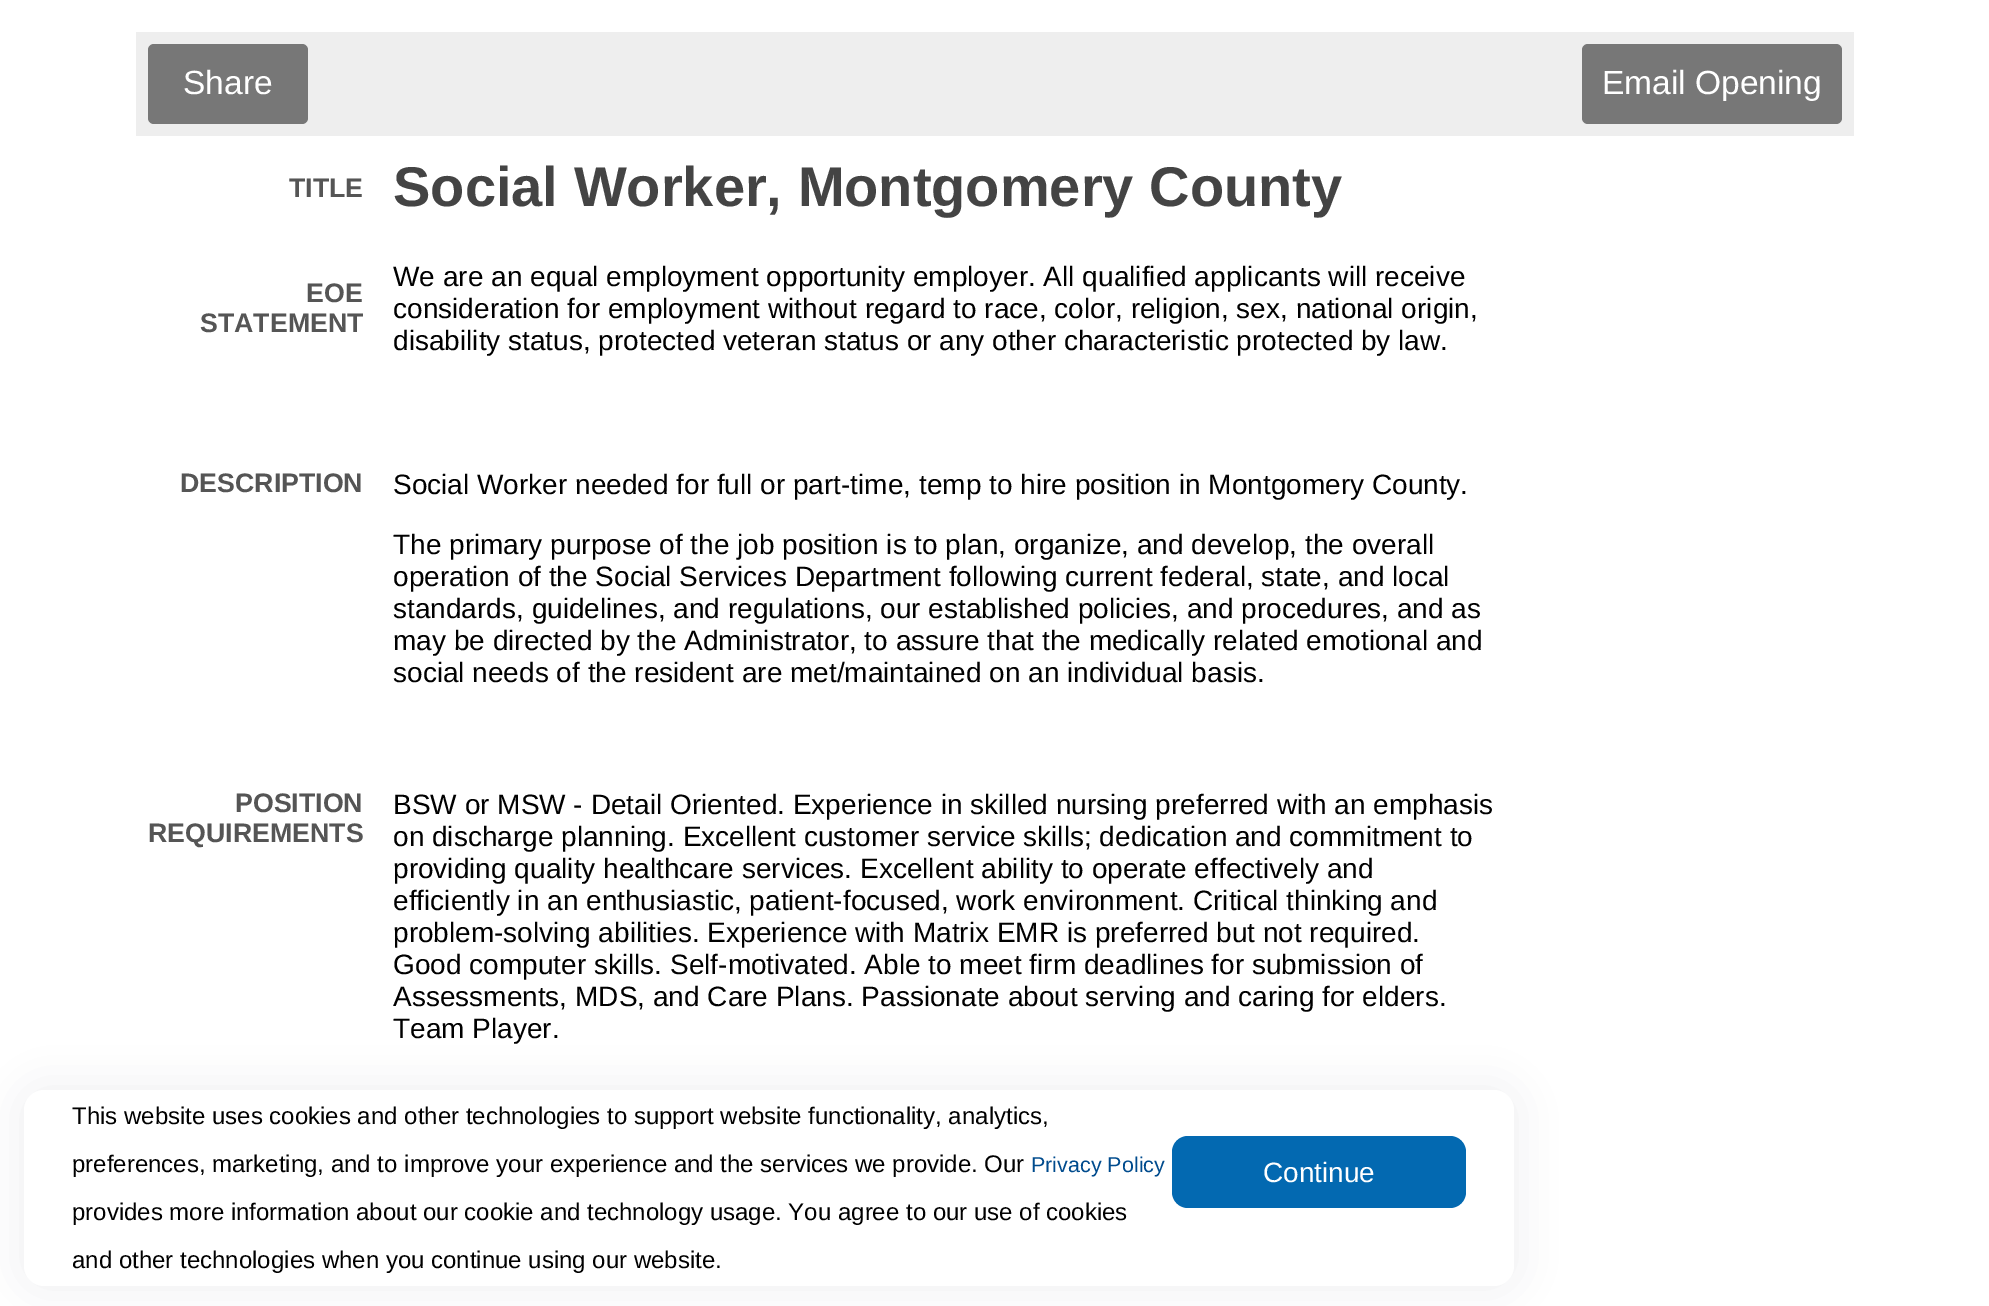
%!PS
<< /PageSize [1989 1306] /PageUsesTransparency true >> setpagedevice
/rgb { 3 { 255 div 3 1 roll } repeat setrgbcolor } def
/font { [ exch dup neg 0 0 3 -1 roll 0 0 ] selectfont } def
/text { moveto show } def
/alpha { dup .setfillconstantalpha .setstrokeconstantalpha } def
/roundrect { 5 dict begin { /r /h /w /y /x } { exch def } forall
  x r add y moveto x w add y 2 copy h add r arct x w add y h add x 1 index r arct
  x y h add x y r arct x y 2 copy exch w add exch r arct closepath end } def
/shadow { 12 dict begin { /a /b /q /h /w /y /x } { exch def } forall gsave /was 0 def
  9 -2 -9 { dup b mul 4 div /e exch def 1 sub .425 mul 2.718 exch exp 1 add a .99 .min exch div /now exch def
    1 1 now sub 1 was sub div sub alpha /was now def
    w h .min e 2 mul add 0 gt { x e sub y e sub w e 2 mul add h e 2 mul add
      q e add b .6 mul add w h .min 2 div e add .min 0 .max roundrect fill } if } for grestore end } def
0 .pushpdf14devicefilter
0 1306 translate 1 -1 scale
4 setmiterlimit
255 255 255 rgb
0 0 1989 1306 rectfill
238 238 238 rgb
136 32 1718 104 rectfill
119 119 119 rgb
148 44 160 80 6 roundrect fill
1582 44 260 80 6 roundrect fill
39 59 74 rgb
24 1090 1490 196 20 20 0.08 shadow
255 255 255 rgb
24 1090 1490 196 20 roundrect fill
3 105 177 rgb
1172 1136 294 72 16 roundrect fill
/LiberationSans-Regular 33.5 font
255 255 255 rgb
(Share) 183 94 text
(Email Opening) 1602 94 text
/LiberationSans-Bold 26.75 font
85 85 85 rgb
(TITLE) 289 197 text
/LiberationSans-Bold 56 font
68 68 68 rgb
(Social Worker, Montgomery County) 393 206 text
/LiberationSans-Bold 26.75 font
85 85 85 rgb
(EOE) 306 302 text
(STATEMENT) 200 332 text
/LiberationSans-Regular 28 font
0 0 0 rgb
(We are an equal employment opportunity employer. All qualified applicants will receive) 393 286 text
(consideration for employment without regard to race, color, religion, sex, national origin,) 393 318 text
(disability status, protected veteran status or any other characteristic protected by law.) 393 350 text
/LiberationSans-Bold 26.75 font
85 85 85 rgb
(DESCRIPTION) 180 492 text
/LiberationSans-Regular 28 font
0 0 0 rgb
(Social Worker needed for full or part-time, temp to hire position in Montgomery County.) 393 494 text
(The primary purpose of the job position is to plan, organize, and develop, the overall) 393 554 text
(operation of the Social Services Department following current federal, state, and local) 393 586 text
(standards, guidelines, and regulations, our established policies, and procedures, and as) 393 618 text
(may be directed by the Administrator, to assure that the medically related emotional and) 393 650 text
(social needs of the resident are met/maintained on an individual basis.) 393 682 text
/LiberationSans-Bold 26.75 font
85 85 85 rgb
(POSITION) 235 812 text
(REQUIREMENTS) 148 842 text
/LiberationSans-Regular 28 font
0 0 0 rgb
(BSW or MSW - Detail Oriented. Experience in skilled nursing preferred with an emphasis) 393 814 text
(on discharge planning. Excellent customer service skills; dedication and commitment to) 393 846 text
(providing quality healthcare services. Excellent ability to operate effectively and) 393 878 text
(efficiently in an enthusiastic, patient-focused, work environment. Critical thinking and) 393 910 text
(problem-solving abilities. Experience with Matrix EMR is preferred but not required.) 393 942 text
(Good computer skills. Self-motivated. Able to meet firm deadlines for submission of) 393 974 text
(Assessments, MDS, and Care Plans. Passionate about serving and caring for elders.) 393 1006 text
(Team Player.) 393 1038 text
/LiberationSans-Regular 24 font
(This website uses cookies and other technologies to support website functionality, analytics,) 72 1124 text
(preferences, marketing, and to improve your experience and the services we provide. Our) 72 1172 text
/LiberationSans-Regular 21.5 font
0 75 141 rgb
(Privacy Policy) 1031 1172 text
/LiberationSans-Regular 24 font
0 0 0 rgb
(provides more information about our cookie and technology usage. You agree to our use of cookies) 72 1220 text
(and other technologies when you continue using our website.) 72 1268 text
/LiberationSans-Regular 28 font
255 255 255 rgb
(Continue) 1263 1182 text
.poppdf14devicefilter showpage
